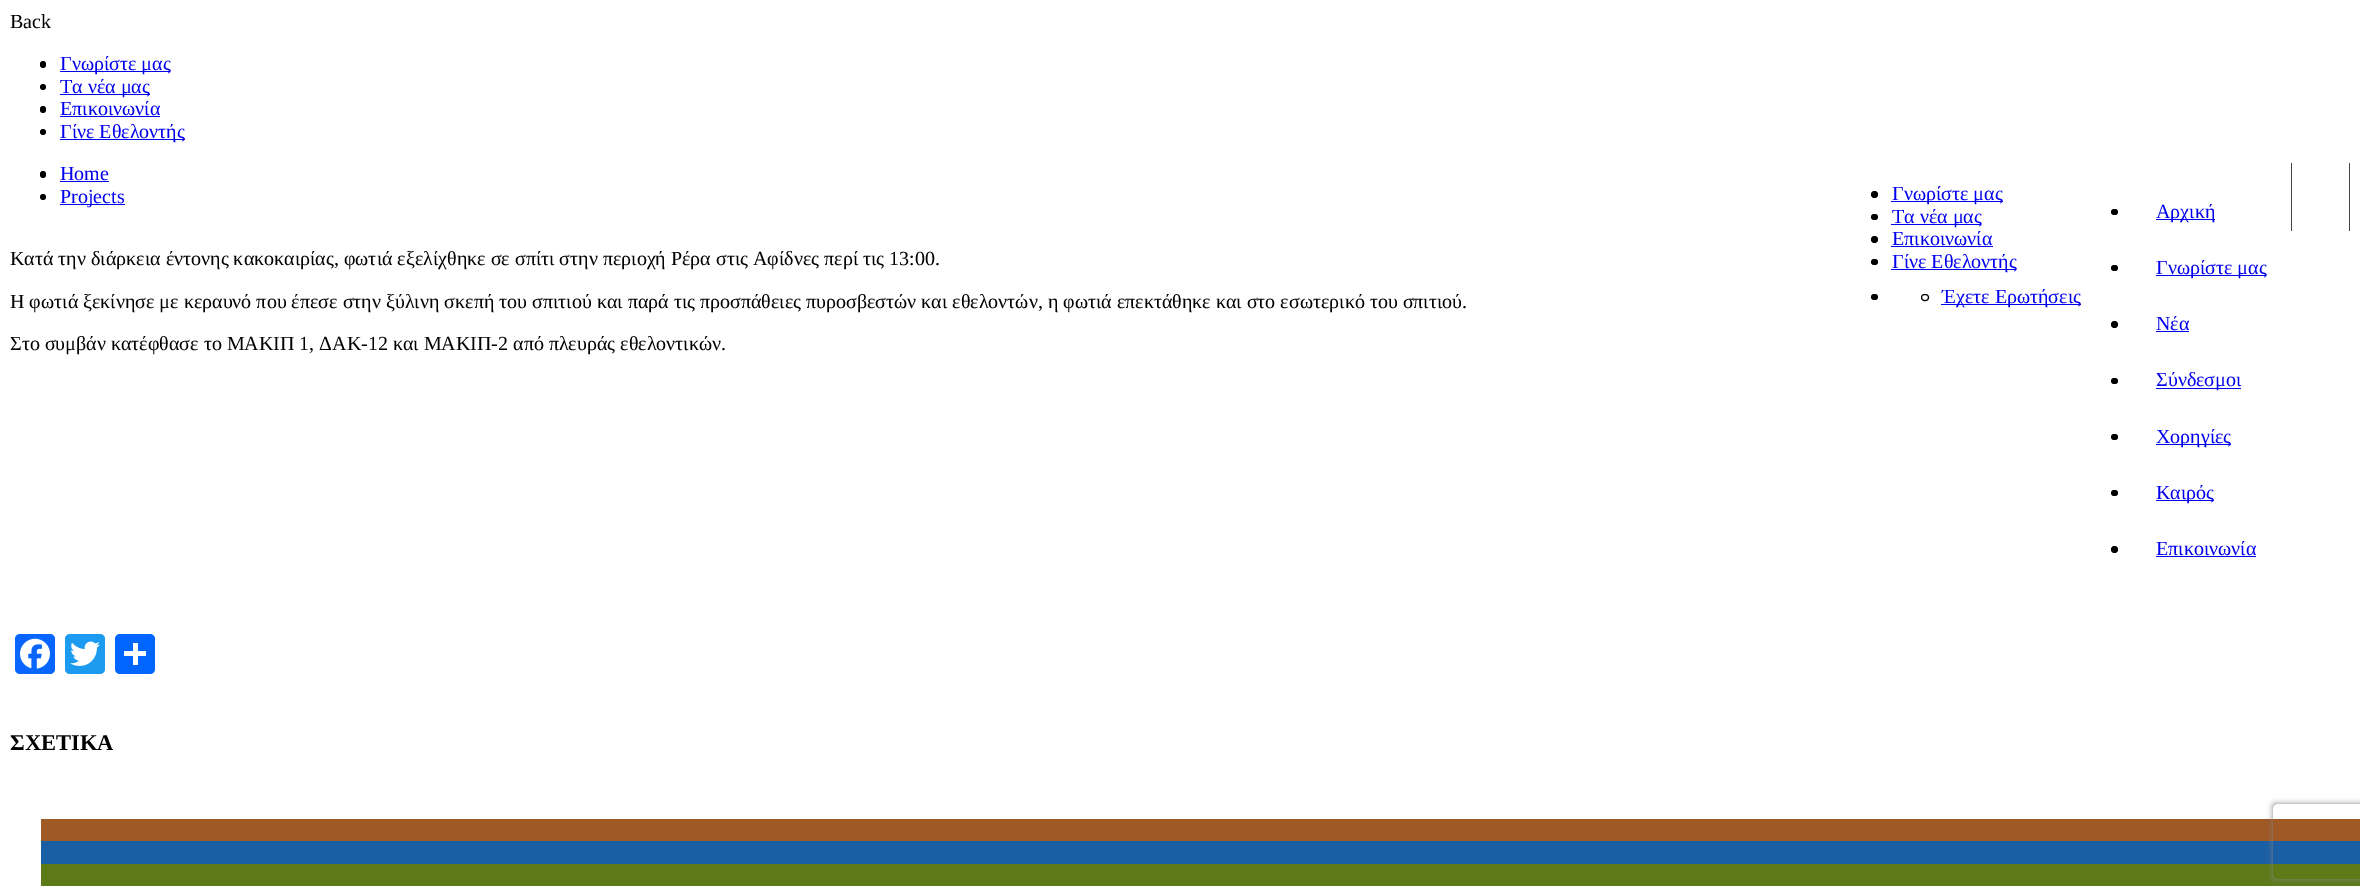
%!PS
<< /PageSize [2360 896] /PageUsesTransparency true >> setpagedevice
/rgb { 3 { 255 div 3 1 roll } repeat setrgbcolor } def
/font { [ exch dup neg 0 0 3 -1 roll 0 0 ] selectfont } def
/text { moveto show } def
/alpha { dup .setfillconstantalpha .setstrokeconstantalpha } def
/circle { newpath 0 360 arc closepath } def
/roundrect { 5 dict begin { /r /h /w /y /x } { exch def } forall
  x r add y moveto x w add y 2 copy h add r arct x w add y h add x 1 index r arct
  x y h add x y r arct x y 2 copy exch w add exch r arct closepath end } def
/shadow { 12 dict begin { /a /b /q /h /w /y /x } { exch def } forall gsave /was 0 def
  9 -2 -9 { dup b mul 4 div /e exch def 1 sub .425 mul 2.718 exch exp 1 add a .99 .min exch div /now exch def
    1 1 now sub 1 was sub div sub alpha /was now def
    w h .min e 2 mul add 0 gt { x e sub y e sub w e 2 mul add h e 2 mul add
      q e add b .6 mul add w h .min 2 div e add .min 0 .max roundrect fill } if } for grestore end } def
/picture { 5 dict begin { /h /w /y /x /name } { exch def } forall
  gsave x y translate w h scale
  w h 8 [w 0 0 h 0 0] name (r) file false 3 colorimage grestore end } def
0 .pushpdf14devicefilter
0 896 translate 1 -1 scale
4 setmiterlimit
255 255 255 rgb
0 0 2360 896 rectfill
0 0 0 rgb
40 61 6 7 3 roundrect fill
0 0 238 rgb
60 71 110 1 rectfill
0 0 0 rgb
43 87 3 circle fill
0 0 238 rgb
60 94 90 1 rectfill
0 0 0 rgb
40 106 6 7 3 roundrect fill
0 0 238 rgb
60 116 100 1 rectfill
0 0 0 rgb
43 132 3 circle fill
0 0 238 rgb
60 139 125 1 rectfill
0 0 0 rgb
40 171 6 7 3 roundrect fill
0 0 238 rgb
60 181 49 1 rectfill
0 0 0 rgb
43 197 3 circle fill
0 0 238 rgb
60 204 65 1 rectfill
8 102 255 rgb
15 634 40 40 5 roundrect fill
(img_01.rgb) 20 638 30 31 picture
29 155 240 rgb
65 634 40 40 5 roundrect fill
(img_02.rgb) 70 641 30 25 picture
1 102 255 rgb
115 634 40 40 5 roundrect fill
255 255 255 rgb
133 643 5 22 rectfill
124 651 22 5 rectfill
158 89 36 rgb
41 819 2319 22 rectfill
26 94 163 rgb
41 841 2319 23 rectfill
93 122 24 rgb
41 864 2319 22 rectfill
0 0 0 rgb
1874.5 194.5 3.5 circle fill
0 0 238 rgb
1891 201 112 1 rectfill
0 0 0 rgb
1871 214 7 6 3 roundrect fill
0 0 238 rgb
1891 224 90 1 rectfill
0 0 0 rgb
1874.5 239.5 3.5 circle fill
0 0 238 rgb
1891 246 102 1 rectfill
0 0 0 rgb
1871 259 7 6 3 roundrect fill
0 0 238 rgb
1891 269 125 1 rectfill
0 0 0 rgb
1871 294 7 6 3 roundrect fill
1921.5 294.5 7 6 3 roundrect stroke
0 0 238 rgb
1941 304 140 1 rectfill
0 0 0 rgb
2111 209 7 6 3 roundrect fill
0 0 238 rgb
2156 219 59 1 rectfill
0 0 0 rgb
2111 265 7 6 3 roundrect fill
0 0 238 rgb
2156 275 110 1 rectfill
0 0 0 rgb
2114.5 324.5 3.5 circle fill
0 0 238 rgb
2156 331 33 1 rectfill
0 0 0 rgb
2111 378 7 6 3 roundrect fill
0 0 238 rgb
2156 388 85 1 rectfill
0 0 0 rgb
2111 434 7 6 3 roundrect fill
0 0 238 rgb
2156 444 75 1 rectfill
0 0 0 rgb
2111 490 7 6 3 roundrect fill
0 0 238 rgb
2156 500 58 1 rectfill
0 0 0 rgb
2114.5 549.5 3.5 circle fill
0 0 238 rgb
2156 556 100 1 rectfill
68 68 68 rgb
2349 163 1 68 rectfill
2291 163 1 68 rectfill
gsave
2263 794 moveto 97 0 rlineto 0 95 rlineto -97 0 rlineto closepath 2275.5 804 moveto 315 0 rlineto 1.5 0 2.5 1 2.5 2.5 rcurveto 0 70 rlineto 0 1.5 -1 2.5 -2.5 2.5 rcurveto -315 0 rlineto -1.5 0 -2.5 -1 -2.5 -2.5 rcurveto 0 -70 rlineto 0 -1.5 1 -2.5 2.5 -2.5 rcurveto closepath eoclip newpath
128 128 128 rgb
2273 804 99 75 2.5 3 1 shadow
grestore
/LiberationSerif-Regular 20 font
0 0 0 rgb
(Back) 10 28 text
0 0 238 rgb
(Γνωρίστε μας) 60 70 text
(Τα νέα μας) 60 93 text
(Επικοινωνία) 60 115 text
(Γίνε Εθελοντής) 60 138 text
(Home) 60 180 text
(Projects) 60 203 text
0 0 0 rgb
(Κατά την διάρκεια έντονης κακοκαιρίας, φωτιά εξελίχθηκε σε σπίτι στην περιοχή Ρέρα στις Αφίδνες περί τις 13:00.) 10 265 text
(Η φωτιά ξεκίνησε με κεραυνό που έπεσε στην ξύλινη σκεπή του σπιτιού και παρά τις προσπάθειες πυροσβεστών και εθελοντών, η φωτιά επεκτάθηκε και στο εσωτερικό του σπιτιού.) 10 308 text
(Στο συμβάν κατέφθασε το ΜΑΚΙΠ 1, ΔΑΚ-12 και ΜΑΚΙΠ-2 από πλευράς εθελοντικών.) 10 350 text
/LiberationSerif-Bold 22.5 font
(ΣΧΕΤΙΚΑ) 10 750 text
/LiberationSerif-Regular 20 font
0 0 238 rgb
(Γνωρίστε μας) 1892 200 text
(Τα νέα μας) 1892 223 text
(Επικοινωνία) 1892 245 text
(Γίνε Εθελοντής) 1892 268 text
(Έχετε Ερωτήσεις) 1942 303 text
(Αρχική) 2156 218 text
(Γνωρίστε μας) 2156 274 text
(Νέα) 2156 330 text
(Σύνδεσμοι) 2156 386 text
(Χορηγίες) 2156 443 text
(Καιρός) 2156 499 text
(Επικοινωνία) 2156 555 text
.poppdf14devicefilter showpage
